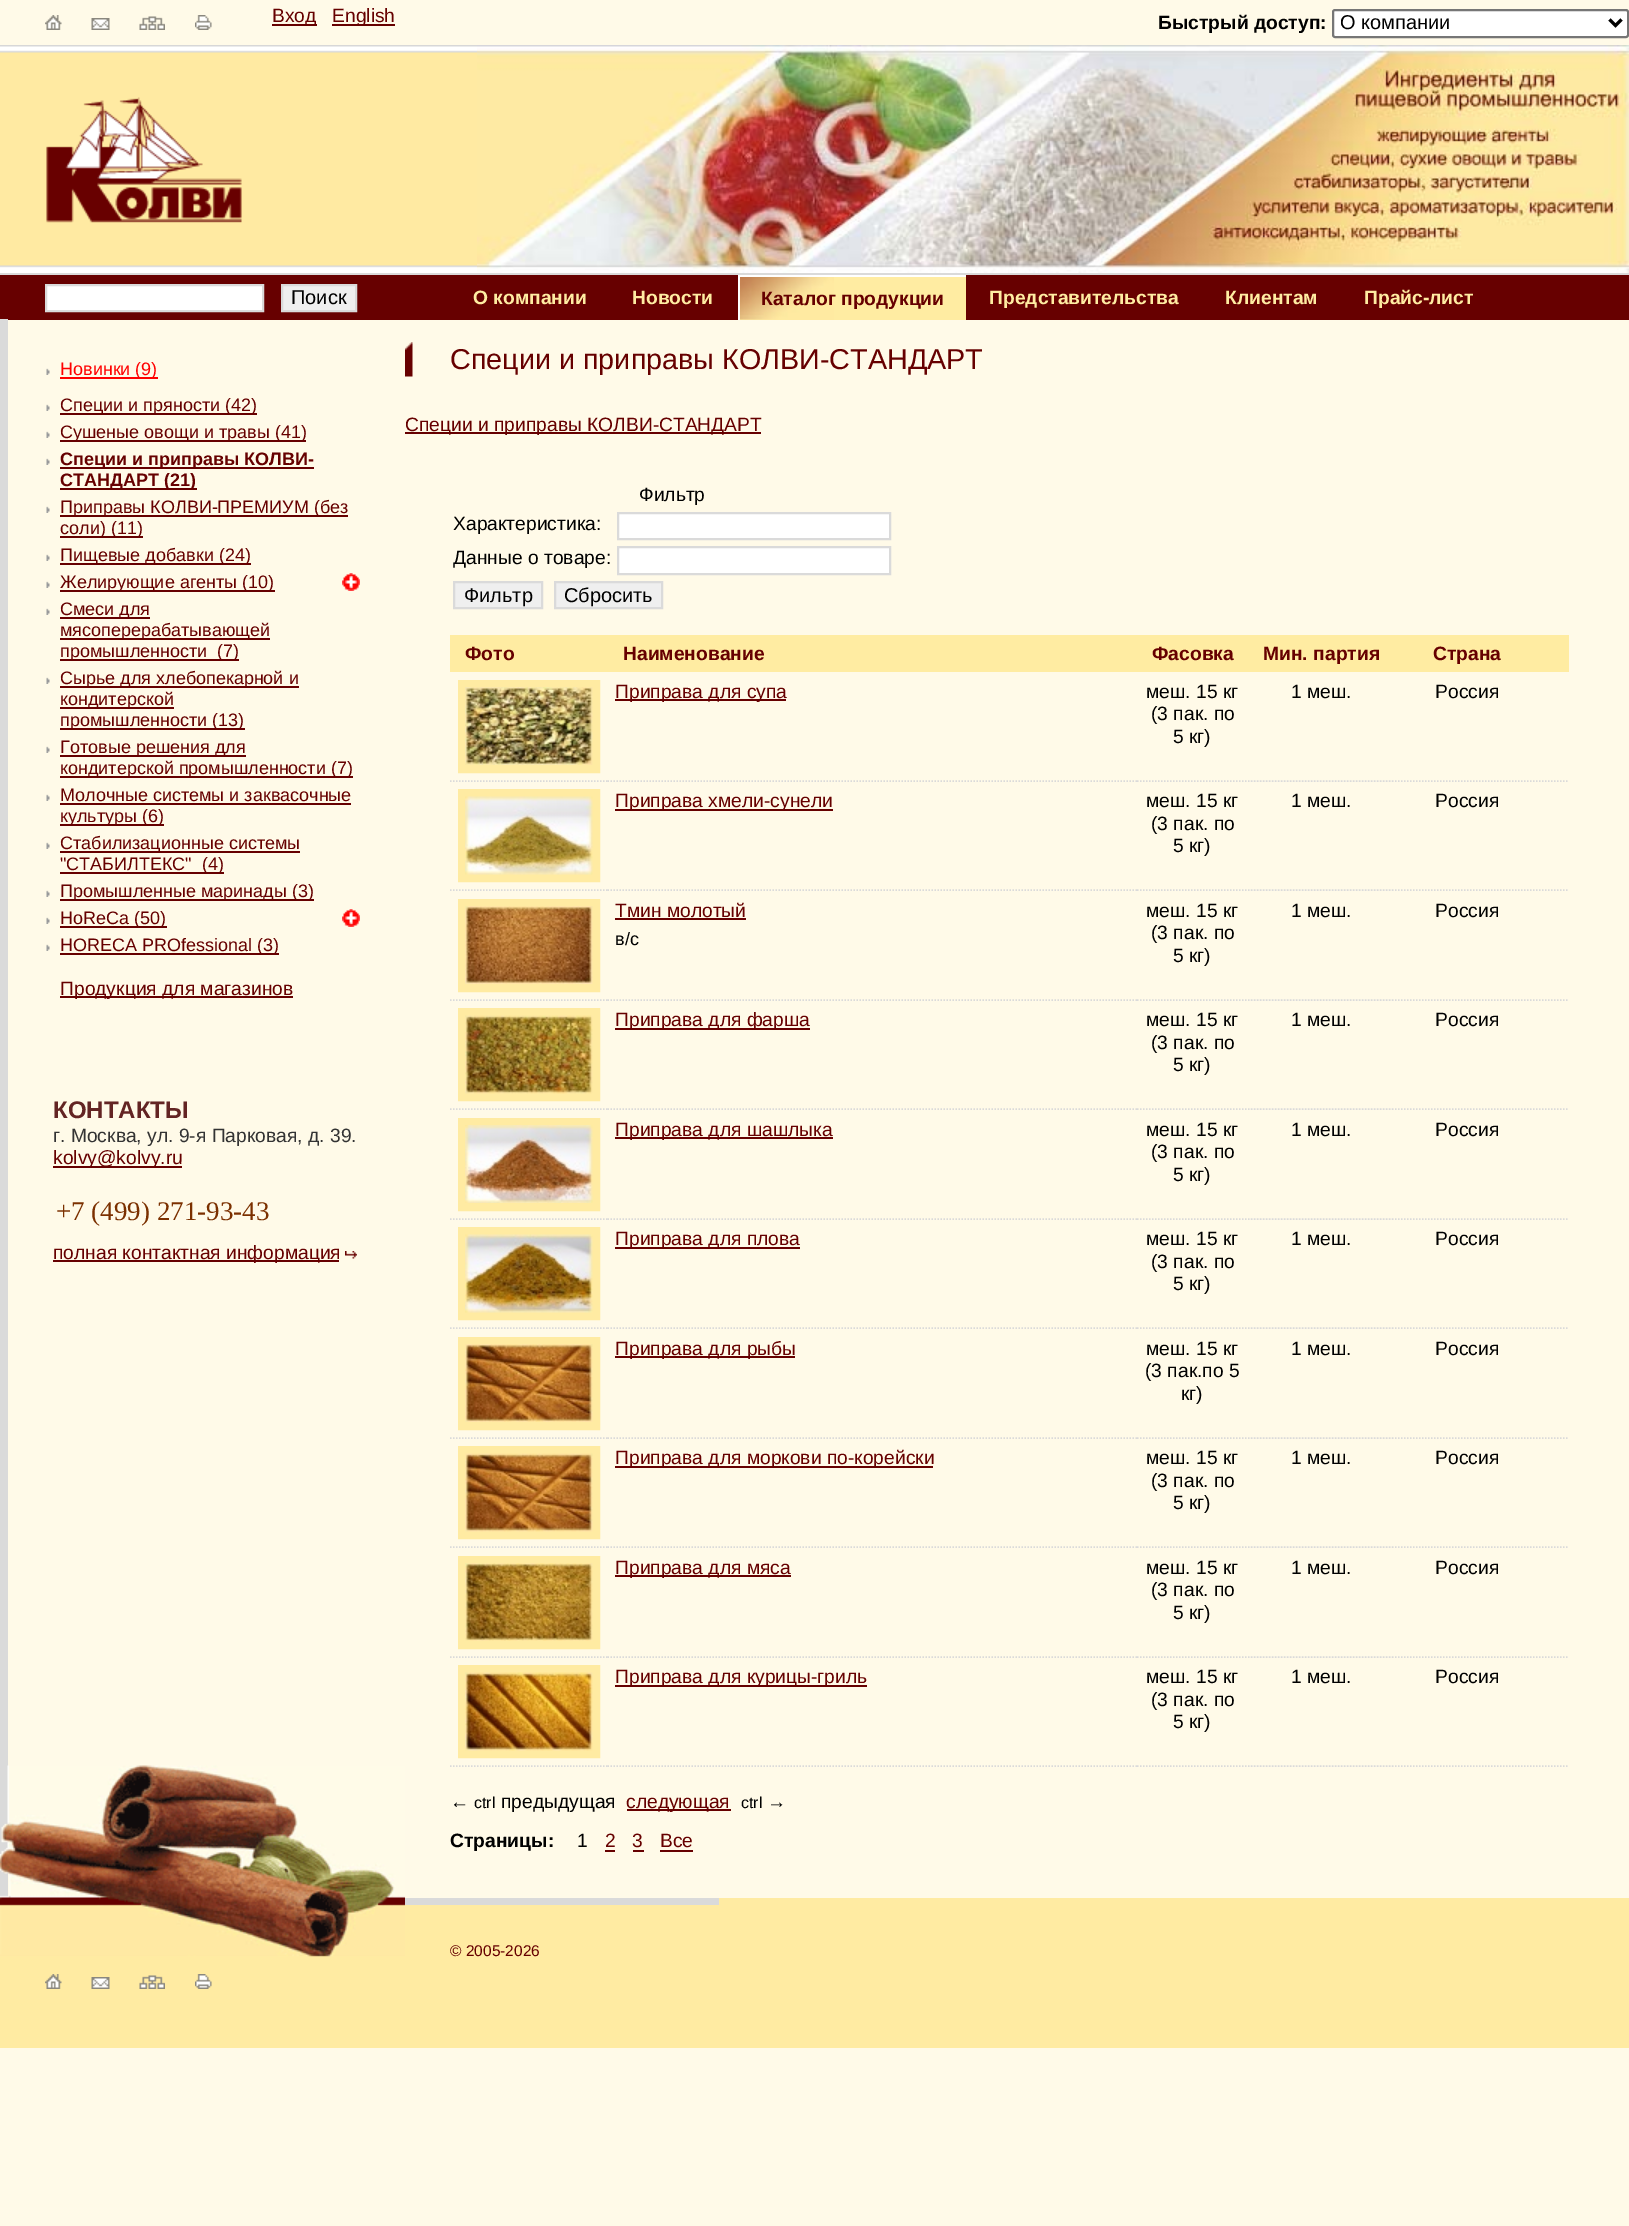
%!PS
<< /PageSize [1629 2226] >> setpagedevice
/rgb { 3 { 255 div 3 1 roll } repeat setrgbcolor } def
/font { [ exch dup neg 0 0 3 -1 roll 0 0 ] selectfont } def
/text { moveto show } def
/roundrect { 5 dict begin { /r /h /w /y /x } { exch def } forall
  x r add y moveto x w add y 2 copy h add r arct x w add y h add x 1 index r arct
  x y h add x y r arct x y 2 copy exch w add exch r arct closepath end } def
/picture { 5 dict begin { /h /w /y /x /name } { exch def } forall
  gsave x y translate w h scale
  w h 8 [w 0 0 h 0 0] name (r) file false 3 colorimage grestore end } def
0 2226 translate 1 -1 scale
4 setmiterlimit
255 250 232 rgb
0 0 1629 2226 rectfill
(img_01.rgb) 45 15 17 15 picture
(img_02.rgb) 91 18 19 12 picture
(img_03.rgb) 139 16 26 14 picture
(img_04.rgb) 195 15 17 15 picture
102 0 0 rgb
272 24 45 2 rectfill
332 24 63 2 rectfill
255 255 255 rgb
1333 10 295 27 2 roundrect gsave fill grestore
118 118 118 rgb
2 setlinewidth
stroke
0 0 0 rgb
3 setlinewidth
1609.5 19.5 moveto 6 6 rlineto 6 -6 rlineto stroke
(img_05.rgb) 0 45 405 228 picture
218 218 218 rgb
0 273 1629 2 rectfill
(img_06.rgb) 46 97 196 126 picture
(img_07.rgb) 405 45 72 228 picture
(img_08.rgb) 477 45 1152 228 picture
103 0 0 rgb
0 275 1629 45 rectfill
255 255 255 rgb
46 285 moveto 217 0 rlineto 0 26 rlineto -217 0 rlineto closepath gsave fill grestore
218 218 218 rgb
2 setlinewidth
stroke
239 239 239 rgb
282 285 moveto 74 0 rlineto 0 26 rlineto -74 0 rlineto closepath gsave fill grestore
218 218 218 rgb
stroke
255 236 162 rgb
740 277 226 43 rectfill
(img_09.rgb) 740 277 94 43 picture
255 255 255 rgb
738 275 228 2 rectfill
738 275 2 45 rectfill
218 218 218 rgb
0 319 8 1579 rectfill
(img_10.rgb) 46 368 4 7 picture
255 0 0 rgb
60 377 98 2 rectfill
(img_10.rgb) 46 404 4 7 picture
102 0 0 rgb
60 413 197 2 rectfill
(img_10.rgb) 46 431 4 7 picture
60 440 246 2 rectfill
(img_10.rgb) 46 458 4 7 picture
60 467 254 2 rectfill
60 488 137 2 rectfill
(img_10.rgb) 46 506 4 7 picture
60 515 288 2 rectfill
60 536 83 2 rectfill
(img_10.rgb) 46 554 4 7 picture
60 563 191 2 rectfill
(img_10.rgb) 46 581 4 7 picture
60 590 215 2 rectfill
(img_11.rgb) 342 573 18 18 picture
(img_10.rgb) 46 608 4 7 picture
60 617 90 2 rectfill
60 638 210 2 rectfill
60 659 179 2 rectfill
(img_10.rgb) 46 677 4 7 picture
60 686 239 2 rectfill
60 707 114 2 rectfill
60 728 185 2 rectfill
(img_10.rgb) 46 746 4 7 picture
60 755 186 2 rectfill
60 776 293 2 rectfill
(img_10.rgb) 46 794 4 7 picture
60 803 291 2 rectfill
60 824 104 2 rectfill
(img_10.rgb) 46 842 4 7 picture
60 851 240 2 rectfill
60 872 164 2 rectfill
(img_10.rgb) 46 890 4 7 picture
60 899 254 2 rectfill
(img_10.rgb) 46 917 4 7 picture
60 926 107 2 rectfill
(img_11.rgb) 342 909 18 18 picture
(img_10.rgb) 46 944 4 7 picture
60 953 219 2 rectfill
60 996 233 2 rectfill
53 1166 129 2 rectfill
53 1260 286 2 rectfill
(img_12.rgb) 345 1251 12 8 picture
(img_13.rgb) 405 342 8 35 picture
405 432 356 2 rectfill
255 255 255 rgb
618 513 moveto 272 0 rlineto 0 26 rlineto -272 0 rlineto closepath gsave fill grestore
218 218 218 rgb
stroke
255 255 255 rgb
618 547 moveto 272 0 rlineto 0 27 rlineto -272 0 rlineto closepath gsave fill grestore
218 218 218 rgb
stroke
239 239 239 rgb
454 582 moveto 88 0 rlineto 0 26 rlineto -88 0 rlineto closepath gsave fill grestore
218 218 218 rgb
stroke
239 239 239 rgb
555 582 moveto 107 0 rlineto 0 26 rlineto -107 0 rlineto closepath gsave fill grestore
218 218 218 rgb
stroke
255 236 162 rgb
450 635 1119 37 rectfill
218 218 218 rgb
1.5 setlinewidth
[1.5 1.5] 0 setdash
450 781 moveto 157.5 0 rlineto stroke
255 235 162 rgb
8 setlinewidth
[] 0 setdash
462 684 134 85 rectstroke
(img_14.rgb) 465 687 128 78 picture
218 218 218 rgb
1.5 setlinewidth
[1.5 1.5] 0 setdash
607.5 781 moveto 529.5 0 rlineto stroke
102 0 0 rgb
615 699 171 2 rectfill
218 218 218 rgb
1137 781 moveto 111 0 rlineto stroke
1248 781 moveto 147 0 rlineto stroke
1395 781 moveto 144 0 rlineto stroke
1539 781 moveto 30 0 rlineto stroke
450 890 moveto 157.5 0 rlineto stroke
255 235 162 rgb
8 setlinewidth
[] 0 setdash
462 793 134 85 rectstroke
(img_15.rgb) 465 796 128 79 picture
218 218 218 rgb
1.5 setlinewidth
[1.5 1.5] 0 setdash
607.5 890 moveto 529.5 0 rlineto stroke
102 0 0 rgb
615 809 218 2 rectfill
218 218 218 rgb
1137 890 moveto 111 0 rlineto stroke
1248 890 moveto 147 0 rlineto stroke
1395 890 moveto 144 0 rlineto stroke
1539 890 moveto 30 0 rlineto stroke
450 1000 moveto 157.5 0 rlineto stroke
255 235 162 rgb
8 setlinewidth
[] 0 setdash
462 903 134 85 rectstroke
(img_16.rgb) 465 906 128 78 picture
218 218 218 rgb
1.5 setlinewidth
[1.5 1.5] 0 setdash
607.5 1000 moveto 529.5 0 rlineto stroke
102 0 0 rgb
615 918 131 2 rectfill
218 218 218 rgb
1137 1000 moveto 111 0 rlineto stroke
1248 1000 moveto 147 0 rlineto stroke
1395 1000 moveto 144 0 rlineto stroke
1539 1000 moveto 30 0 rlineto stroke
450 1109 moveto 157.5 0 rlineto stroke
255 235 162 rgb
8 setlinewidth
[] 0 setdash
462 1012 134 85 rectstroke
(img_17.rgb) 465 1015 128 79 picture
218 218 218 rgb
1.5 setlinewidth
[1.5 1.5] 0 setdash
607.5 1109 moveto 529.5 0 rlineto stroke
102 0 0 rgb
615 1028 195 2 rectfill
218 218 218 rgb
1137 1109 moveto 111 0 rlineto stroke
1248 1109 moveto 147 0 rlineto stroke
1395 1109 moveto 144 0 rlineto stroke
1539 1109 moveto 30 0 rlineto stroke
450 1219 moveto 157.5 0 rlineto stroke
255 235 162 rgb
8 setlinewidth
[] 0 setdash
462 1122 134 85 rectstroke
(img_18.rgb) 465 1125 128 78 picture
218 218 218 rgb
1.5 setlinewidth
[1.5 1.5] 0 setdash
607.5 1219 moveto 529.5 0 rlineto stroke
102 0 0 rgb
615 1137 218 2 rectfill
218 218 218 rgb
1137 1219 moveto 111 0 rlineto stroke
1248 1219 moveto 147 0 rlineto stroke
1395 1219 moveto 144 0 rlineto stroke
1539 1219 moveto 30 0 rlineto stroke
450 1328 moveto 157.5 0 rlineto stroke
255 235 162 rgb
8 setlinewidth
[] 0 setdash
462 1231 134 85 rectstroke
(img_19.rgb) 465 1234 128 79 picture
218 218 218 rgb
1.5 setlinewidth
[1.5 1.5] 0 setdash
607.5 1328 moveto 529.5 0 rlineto stroke
102 0 0 rgb
615 1247 185 2 rectfill
218 218 218 rgb
1137 1328 moveto 111 0 rlineto stroke
1248 1328 moveto 147 0 rlineto stroke
1395 1328 moveto 144 0 rlineto stroke
1539 1328 moveto 30 0 rlineto stroke
450 1438 moveto 157.5 0 rlineto stroke
255 235 162 rgb
8 setlinewidth
[] 0 setdash
462 1341 134 85 rectstroke
(img_20.rgb) 465 1344 128 78 picture
218 218 218 rgb
1.5 setlinewidth
[1.5 1.5] 0 setdash
607.5 1438 moveto 529.5 0 rlineto stroke
102 0 0 rgb
615 1356 180 2 rectfill
218 218 218 rgb
1137 1438 moveto 111 0 rlineto stroke
1248 1438 moveto 147 0 rlineto stroke
1395 1438 moveto 144 0 rlineto stroke
1539 1438 moveto 30 0 rlineto stroke
450 1547 moveto 157.5 0 rlineto stroke
255 235 162 rgb
8 setlinewidth
[] 0 setdash
462 1450 134 85 rectstroke
(img_21.rgb) 465 1453 128 79 picture
218 218 218 rgb
1.5 setlinewidth
[1.5 1.5] 0 setdash
607.5 1547 moveto 529.5 0 rlineto stroke
102 0 0 rgb
615 1466 318 2 rectfill
218 218 218 rgb
1137 1547 moveto 111 0 rlineto stroke
1248 1547 moveto 147 0 rlineto stroke
1395 1547 moveto 144 0 rlineto stroke
1539 1547 moveto 30 0 rlineto stroke
450 1657 moveto 157.5 0 rlineto stroke
255 235 162 rgb
8 setlinewidth
[] 0 setdash
462 1560 134 85 rectstroke
(img_22.rgb) 465 1563 128 78 picture
218 218 218 rgb
1.5 setlinewidth
[1.5 1.5] 0 setdash
607.5 1657 moveto 529.5 0 rlineto stroke
102 0 0 rgb
615 1575 176 2 rectfill
218 218 218 rgb
1137 1657 moveto 111 0 rlineto stroke
1248 1657 moveto 147 0 rlineto stroke
1395 1657 moveto 144 0 rlineto stroke
1539 1657 moveto 30 0 rlineto stroke
450 1766 moveto 157.5 0 rlineto stroke
255 235 162 rgb
8 setlinewidth
[] 0 setdash
462 1669 134 85 rectstroke
(img_23.rgb) 465 1672 128 79 picture
218 218 218 rgb
1.5 setlinewidth
[1.5 1.5] 0 setdash
607.5 1766 moveto 529.5 0 rlineto stroke
102 0 0 rgb
615 1685 252 2 rectfill
218 218 218 rgb
1137 1766 moveto 111 0 rlineto stroke
1248 1766 moveto 147 0 rlineto stroke
1395 1766 moveto 144 0 rlineto stroke
1539 1766 moveto 30 0 rlineto stroke
102 0 0 rgb
627 1809 104 2 rectfill
605 1850 10 2 rectfill
633 1850 11 2 rectfill
660 1850 33 2 rectfill
255 235 162 rgb
0 1955 405 93 rectfill
(img_24.rgb) 0 1765 405 192 picture
(img_25.rgb) 45 1974 17 15 picture
(img_26.rgb) 91 1977 19 12 picture
(img_27.rgb) 139 1975 26 14 picture
(img_28.rgb) 195 1974 17 15 picture
405 1898 1224 150 rectfill
218 218 218 rgb
405 1898 314 7 rectfill
/LiberationSans-Regular 19.25 font
102 0 0 rgb
(Вход) 272 22 text
(English) 332 22 text
/LiberationSans-Bold 19.25 font
0 0 0 rgb
(Быстрый доступ:) 1158 29 text
/LiberationSans-Regular 20 font
(О компании) 1340 29 text
(Поиск) 291 304 text
/LiberationSans-Bold 19.25 font
255 236 162 rgb
(О компании) 473 304 text
(Новости) 632 304 text
102 0 0 rgb
(Каталог продукции) 761 305 text
255 236 162 rgb
(Представительства) 989 304 text
(Клиентам) 1225 304 text
(Прайс-лист) 1364 304 text
/LiberationSans-Regular 18 font
255 0 0 rgb
(Новинки \(9\)) 60 375 text
102 0 0 rgb
(Специи и пряности \(42\)) 60 411 text
(Сушеные овощи и травы \(41\)) 60 438 text
/LiberationSans-Bold 18 font
(Специи и приправы КОЛВИ-) 60 465 text
(СТАНДАРТ \(21\)) 60 486 text
/LiberationSans-Regular 18 font
(Приправы КОЛВИ-ПРЕМИУМ \(без) 60 513 text
(соли\) \(11\)) 60 534 text
(Пищевые добавки \(24\)) 60 561 text
(Желирующие агенты \(10\)) 60 588 text
(Смеси для) 60 615 text
(мясоперерабатывающей) 60 636 text
(промышленности  \(7\)) 60 657 text
(Сырье для хлебопекарной и) 60 684 text
(кондитерской) 60 705 text
(промышленности \(13\)) 60 726 text
(Готовые решения для) 60 753 text
(кондитерской промышленности \(7\)) 60 774 text
(Молочные системы и заквасочные) 60 801 text
(культуры \(6\)) 60 822 text
(Стабилизационные системы) 60 849 text
("СТАБИЛТЕКС"  \(4\)) 60 870 text
(Промышленные маринады \(3\)) 60 897 text
(HoReCa \(50\)) 60 924 text
(HORECA PROfessional \(3\)) 60 951 text
/LiberationSans-Regular 19.25 font
(Продукция для магазинов) 60 995 text
/LiberationSans-Bold 24 font
99 36 35 rgb
(КОНТАКТЫ) 53 1118 text
/LiberationSans-Regular 19.25 font
51 51 51 rgb
(г. Москва, ул. 9-я Парковая, д. 39.) 53 1142 text
102 0 0 rgb
(kolvy@kolvy.ru) 53 1164 text
/LiberationSerif-Regular 27 font
123 48 0 rgb
(+7 \(499\) 271-93-43) 56 1220 text
/LiberationSans-Regular 19.25 font
102 0 0 rgb
(полная контактная информация) 53 1259 text
/LiberationSans-Regular 28.75 font
(Специи и приправы КОЛВИ-СТАНДАРТ) 450 369 text
/LiberationSans-Regular 19.25 font
(Специи и приправы КОЛВИ-СТАНДАРТ) 405 431 text
0 0 0 rgb
(Фильтр) 639 501 text
(Характеристика:) 453 530 text
(Данные о товаре:) 453 564 text
/LiberationSans-Regular 20 font
(Фильтр) 464 602 text
(Сбросить) 564 602 text
/LiberationSans-Bold 19.25 font
102 0 0 rgb
(Фото) 465 660 text
(Наименование) 623 660 text
(Фасовка) 1152 660 text
(Мин. партия) 1263 660 text
(Страна) 1433 660 text
/LiberationSans-Regular 19.25 font
(Приправа для супа) 615 698 text
0 0 0 rgb
(меш. 15 кг) 1146 698 text
(\(3 пак. по) 1151 720 text
(5 кг\)) 1173 743 text
(1 меш.) 1291 698 text
(Россия) 1435 698 text
102 0 0 rgb
(Приправа хмели-сунели) 615 807 text
0 0 0 rgb
(меш. 15 кг) 1146 807 text
(\(3 пак. по) 1151 830 text
(5 кг\)) 1173 852 text
(1 меш.) 1291 807 text
(Россия) 1435 807 text
102 0 0 rgb
(Тмин молотый) 615 917 text
/LiberationSans-Regular 18 font
0 0 0 rgb
(в/с) 615 945 text
/LiberationSans-Regular 19.25 font
(меш. 15 кг) 1146 917 text
(\(3 пак. по) 1151 939 text
(5 кг\)) 1173 962 text
(1 меш.) 1291 917 text
(Россия) 1435 917 text
102 0 0 rgb
(Приправа для фарша) 615 1026 text
0 0 0 rgb
(меш. 15 кг) 1146 1026 text
(\(3 пак. по) 1151 1049 text
(5 кг\)) 1173 1071 text
(1 меш.) 1291 1026 text
(Россия) 1435 1026 text
102 0 0 rgb
(Приправа для шашлыка) 615 1136 text
0 0 0 rgb
(меш. 15 кг) 1146 1136 text
(\(3 пак. по) 1151 1158 text
(5 кг\)) 1173 1181 text
(1 меш.) 1291 1136 text
(Россия) 1435 1136 text
102 0 0 rgb
(Приправа для плова) 615 1245 text
0 0 0 rgb
(меш. 15 кг) 1146 1245 text
(\(3 пак. по) 1151 1268 text
(5 кг\)) 1173 1290 text
(1 меш.) 1291 1245 text
(Россия) 1435 1245 text
102 0 0 rgb
(Приправа для рыбы) 615 1355 text
0 0 0 rgb
(меш. 15 кг) 1146 1355 text
(\(3 пак.по 5) 1145 1377 text
(кг\)) 1181 1400 text
(1 меш.) 1291 1355 text
(Россия) 1435 1355 text
102 0 0 rgb
(Приправа для моркови по-корейски) 615 1464 text
0 0 0 rgb
(меш. 15 кг) 1146 1464 text
(\(3 пак. по) 1151 1487 text
(5 кг\)) 1173 1509 text
(1 меш.) 1291 1464 text
(Россия) 1435 1464 text
102 0 0 rgb
(Приправа для мяса) 615 1574 text
0 0 0 rgb
(меш. 15 кг) 1146 1574 text
(\(3 пак. по) 1151 1596 text
(5 кг\)) 1173 1619 text
(1 меш.) 1291 1574 text
(Россия) 1435 1574 text
102 0 0 rgb
(Приправа для курицы-гриль) 615 1683 text
0 0 0 rgb
(меш. 15 кг) 1146 1683 text
(\(3 пак. по) 1151 1706 text
(5 кг\)) 1173 1728 text
(1 меш.) 1291 1683 text
(Россия) 1435 1683 text
/LiberationSerif-Regular 19.25 font
(←) 450 1808 text
/LiberationSans-Regular 16 font
(ctrl) 474 1808 text
/LiberationSans-Regular 19.25 font
(предыдущая) 501 1808 text
102 0 0 rgb
(следующая) 626 1808 text
/LiberationSans-Regular 16 font
0 0 0 rgb
(ctrl) 741 1808 text
/LiberationSerif-Regular 19.25 font
(→) 767 1808 text
/LiberationSans-Bold 19.25 font
(Страницы:) 450 1847 text
/LiberationSans-Regular 19.25 font
(1) 577 1847 text
102 0 0 rgb
(2) 605 1847 text
(3) 632 1847 text
(Все) 660 1847 text
/LiberationSans-Regular 15.5 font
(© 2005-2026) 450 1956 text
showpage
